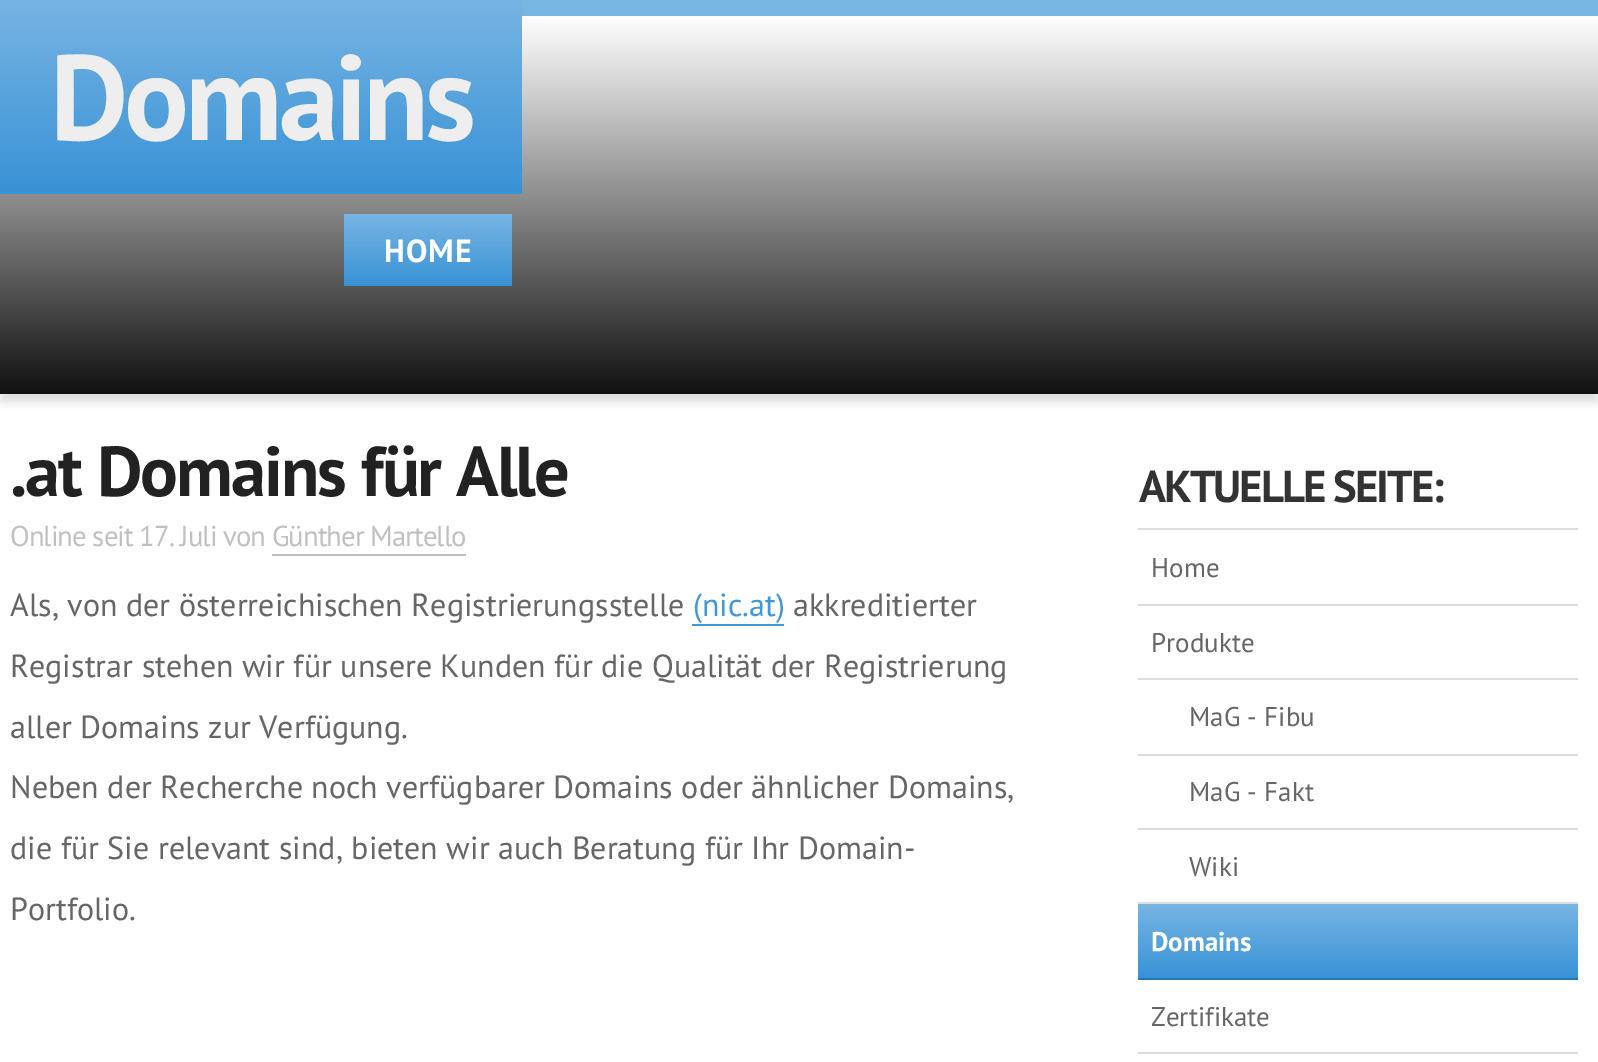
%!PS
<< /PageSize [1598 1062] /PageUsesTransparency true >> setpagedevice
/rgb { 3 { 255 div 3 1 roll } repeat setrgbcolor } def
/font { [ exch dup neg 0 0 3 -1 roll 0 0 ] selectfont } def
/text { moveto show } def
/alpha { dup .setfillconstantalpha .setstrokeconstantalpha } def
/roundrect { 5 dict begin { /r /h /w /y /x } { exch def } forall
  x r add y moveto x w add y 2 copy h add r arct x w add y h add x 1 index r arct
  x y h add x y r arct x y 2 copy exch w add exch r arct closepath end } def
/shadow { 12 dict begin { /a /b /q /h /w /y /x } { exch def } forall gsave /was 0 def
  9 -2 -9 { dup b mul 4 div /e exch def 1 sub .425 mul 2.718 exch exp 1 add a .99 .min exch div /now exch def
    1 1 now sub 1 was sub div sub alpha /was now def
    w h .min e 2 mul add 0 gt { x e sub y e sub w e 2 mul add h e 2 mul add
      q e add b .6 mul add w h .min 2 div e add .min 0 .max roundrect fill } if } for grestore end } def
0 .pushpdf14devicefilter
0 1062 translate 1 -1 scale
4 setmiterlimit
255 255 255 rgb
0 0 1598 1062 rectfill
221 221 221 rgb
0 8 1598 394 0 5 1 shadow
gsave 0 16 moveto 1598 0 rlineto 0 378 rlineto -1598 0 rlineto closepath clip newpath
<< /ShadingType 2 /ColorSpace /DeviceRGB /Coords [799 16 799 394] /Extend [true true] /Function << /FunctionType 2 /Domain [0 1] /C0 [1 1 1] /C1 [0.067 0.067 0.067] /N 1 >> >> shfill grestore
119 181 227 rgb
522 0 1076 16 rectfill
gsave 0 0 moveto 522 0 rlineto 0 194 rlineto -522 0 rlineto closepath clip newpath
<< /ShadingType 2 /ColorSpace /DeviceRGB /Coords [261 -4 261 194] /Extend [true true] /Function << /FunctionType 2 /Domain [0 1] /C0 [0.471 0.71 0.89] /C1 [0.22 0.573 0.839] /N 1 >> >> shfill grestore
gsave 344 214 moveto 168 0 rlineto 0 72 rlineto -168 0 rlineto closepath clip newpath
<< /ShadingType 2 /ColorSpace /DeviceRGB /Coords [428 214 428 286] /Extend [true true] /Function << /FunctionType 2 /Domain [0 1] /C0 [0.471 0.71 0.89] /C1 [0.22 0.573 0.839] /N 1 >> >> shfill grestore
192 192 192 rgb
272 554 194 2 rectfill
66 151 216 rgb
692 624 92 2 rectfill
221 221 221 rgb
1138 528 440 2 rectfill
1138 604 440 2 rectfill
1138 678 440 2 rectfill
1138 754 440 2 rectfill
1138 828 440 2 rectfill
1138 902 440 2 rectfill
gsave 1138 904 moveto 440 0 rlineto 0 74 rlineto -440 0 rlineto closepath clip newpath
<< /ShadingType 2 /ColorSpace /DeviceRGB /Coords [1358 904 1358 978] /Extend [true true] /Function << /FunctionType 2 /Domain [0 1] /C0 [0.471 0.71 0.89] /C1 [0.22 0.573 0.839] /N 1 >> >> shfill grestore
37 119 182 rgb
1138 978 440 2 rectfill
221 221 221 rgb
1138 1052 440 2 rectfill
/PTSans-Bold 121 font
238 238 238 rgb
50 140 moveto -4 0 (Domains) ashow
/PTSans-Bold 32 font
255 255 255 rgb
384 262 moveto 1 0 (HOME) ashow
/PTSans-Bold 70.5 font
34 34 34 rgb
10 496 moveto -2 0 (.at Domains für Alle) ashow
/PTSans-Regular 28.75 font
192 192 192 rgb
10 546 moveto -1 0 (Online seit 17. Juli von Günther Martello) ashow
/PTSans-Regular 32 font
102 102 102 rgb
(Als, von der österreichischen Registrierungsstelle) 10 616 text
66 151 216 rgb
(\(nic.at\)) 693 616 text
102 102 102 rgb
(akkreditierter) 793 616 text
(Registrar stehen wir für unsere Kunden für die Qualität der Registrierung) 10 677 text
(aller Domains zur Verfügung.) 10 738 text
(Neben der Recherche noch verfügbarer Domains oder ähnlicher Domains,) 10 798 text
(die für Sie relevant sind, bieten wir auch Beratung für Ihr Domain-) 10 859 text
(Portfolio.) 10 920 text
/PTSans-Bold 44.75 font
51 51 51 rgb
1139 502 moveto -2 0 (AKTUELLE SEITE:) ashow
/PTSans-Regular 27 font
102 102 102 rgb
(Home) 1151 577 text
(Produkte) 1151 652 text
(MaG - Fibu) 1189 726 text
(MaG - Fakt) 1189 801 text
(Wiki) 1189 876 text
/PTSans-Bold 27 font
255 255 255 rgb
(Domains) 1151 951 text
/PTSans-Regular 27 font
102 102 102 rgb
(Zertifikate) 1151 1026 text
.poppdf14devicefilter showpage
